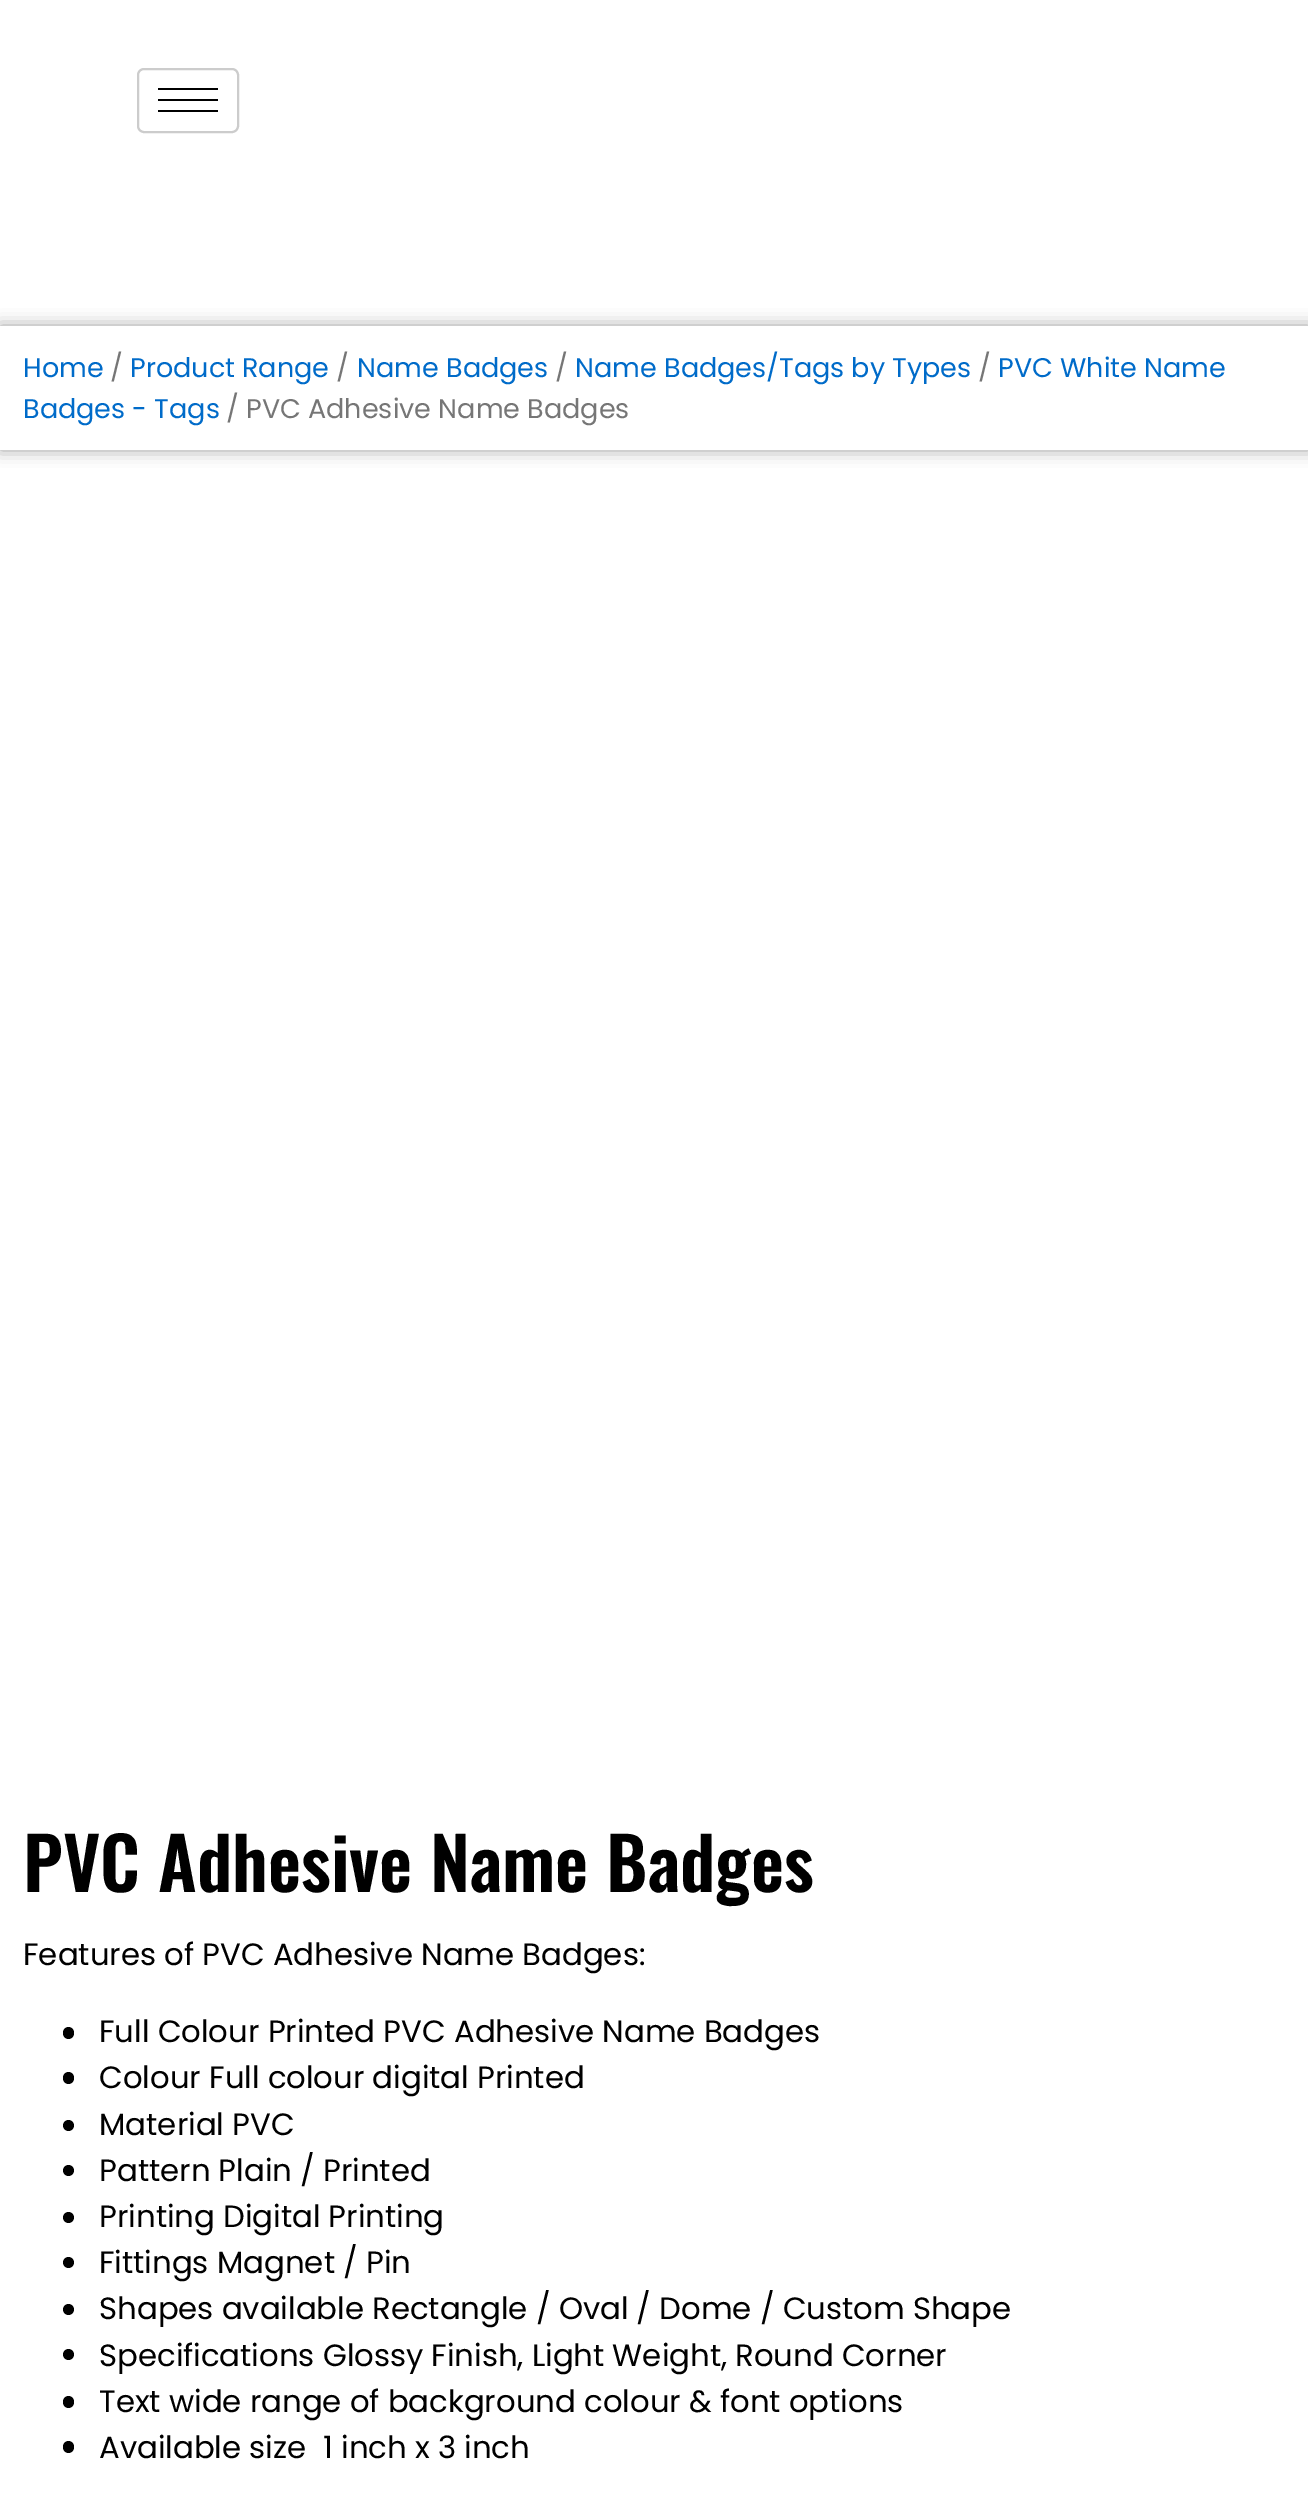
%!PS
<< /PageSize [1308 2506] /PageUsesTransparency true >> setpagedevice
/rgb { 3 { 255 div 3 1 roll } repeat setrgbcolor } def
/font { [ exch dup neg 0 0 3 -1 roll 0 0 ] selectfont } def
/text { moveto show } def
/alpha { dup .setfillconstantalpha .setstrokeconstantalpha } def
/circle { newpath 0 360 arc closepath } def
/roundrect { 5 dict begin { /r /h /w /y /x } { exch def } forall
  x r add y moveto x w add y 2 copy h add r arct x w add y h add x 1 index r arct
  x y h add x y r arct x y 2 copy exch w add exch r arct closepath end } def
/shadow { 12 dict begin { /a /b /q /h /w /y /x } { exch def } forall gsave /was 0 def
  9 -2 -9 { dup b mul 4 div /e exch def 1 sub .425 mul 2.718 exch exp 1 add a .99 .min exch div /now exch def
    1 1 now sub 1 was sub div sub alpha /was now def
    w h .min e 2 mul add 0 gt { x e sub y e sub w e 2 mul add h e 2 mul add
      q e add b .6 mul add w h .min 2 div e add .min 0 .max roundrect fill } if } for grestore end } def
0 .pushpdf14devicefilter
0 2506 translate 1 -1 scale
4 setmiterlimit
255 255 255 rgb
0 0 1308 2506 rectfill
204 204 204 rgb
2 setlinewidth
138 69 100 63 6 roundrect stroke
0 0 0 rgb
158 88 60 2 rectfill
158 99 60 2 rectfill
158 110 60 2 rectfill
gsave
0 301 moveto 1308 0 rlineto 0 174 rlineto -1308 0 rlineto closepath 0 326 moveto 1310 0 rlineto 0 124 rlineto -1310 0 rlineto closepath eoclip newpath
0 326 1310 124 0 8 0.37 shadow
grestore
63 2027 11 12 5.5 roundrect fill
63 2072 11 12 5.5 roundrect fill
68.5 2125.5 5.5 circle fill
68.5 2170.5 5.5 circle fill
68.5 2217.5 5.5 circle fill
68.5 2262.5 5.5 circle fill
68.5 2309.5 5.5 circle fill
68.5 2354.5 5.5 circle fill
63 2396 11 12 5.5 roundrect fill
63 2441 11 12 5.5 roundrect fill
/Poppins-Regular 27 font
0 107 201 rgb
(Home) 23 377 text
118 118 118 rgb
(/) 110 377 text
0 107 201 rgb
(Product Range) 130 377 text
118 118 118 rgb
(/) 336 377 text
0 107 201 rgb
(Name Badges) 357 377 text
118 118 118 rgb
(/) 555 377 text
0 107 201 rgb
(Name Badges/Tags by Types) 575 377 text
118 118 118 rgb
(/) 978 377 text
0 107 201 rgb
(PVC White Name) 998 377 text
(Badges - Tags) 23 418 text
118 118 118 rgb
(/ PVC Adhesive Name Badges) 226 418 text
/Oswald-SemiBold 72 font
0 0 0 rgb
(PVC Adhesive Name Badges) 23 1892 text
/Poppins-Regular 30.75 font
(Features of PVC Adhesive Name Badges:) 23 1965 text
(Full Colour Printed PVC Adhesive Name Badges) 99 2042 text
(Colour Full colour digital Printed) 99 2088 text
(Material PVC) 99 2135 text
(Pattern Plain / Printed) 99 2181 text
(Printing Digital Printing) 99 2227 text
(Fittings Magnet / Pin) 99 2273 text
(Shapes available Rectangle / Oval / Dome / Custom Shape) 99 2319 text
(Specifications Glossy Finish, Light Weight, Round Corner) 99 2366 text
(Text wide range of background colour & font options) 99 2412 text
(Available size) 99 2458 text
(1 inch x 3 inch) 323 2458 text
.poppdf14devicefilter showpage
